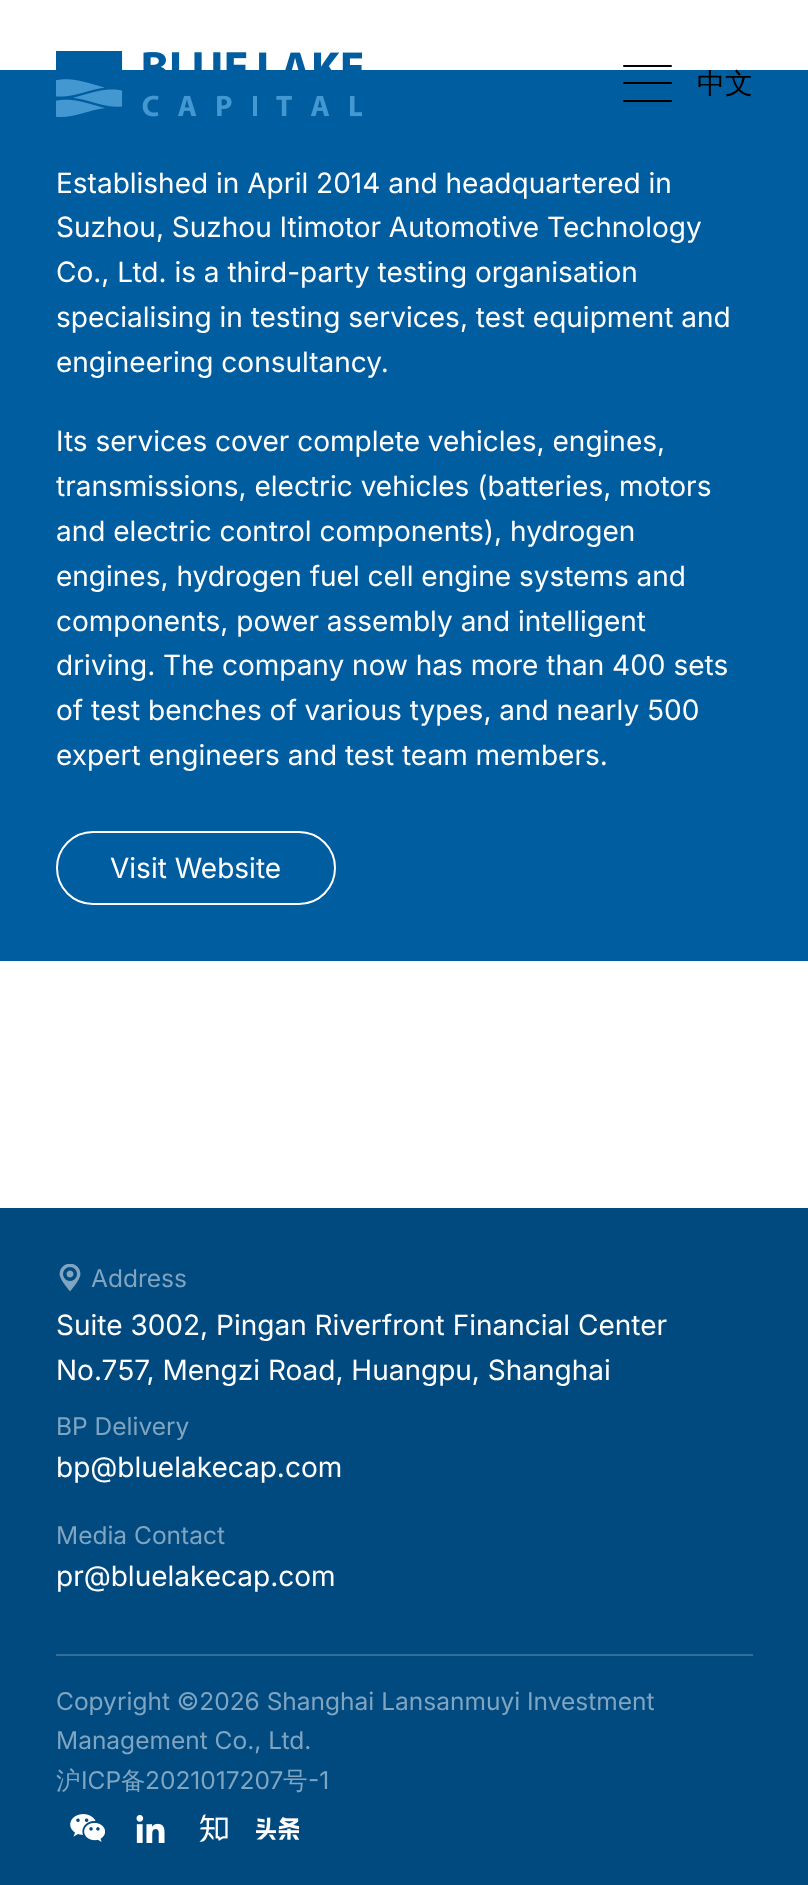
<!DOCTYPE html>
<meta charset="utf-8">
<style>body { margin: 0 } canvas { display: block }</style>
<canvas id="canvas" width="808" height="1885"></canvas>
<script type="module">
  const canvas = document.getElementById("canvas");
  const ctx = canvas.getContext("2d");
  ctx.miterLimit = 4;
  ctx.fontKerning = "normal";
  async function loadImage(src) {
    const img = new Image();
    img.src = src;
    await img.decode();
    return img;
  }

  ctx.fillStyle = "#ffffff";
  ctx.fillRect(0, 0, 808, 1885);
  ctx.fillStyle = "#005da0";
  ctx.fillRect(0, 70, 808, 891);
  ctx.drawImage(await loadImage("img1.png"), 56, 51, 306, 66);
  ctx.fillStyle = "#000000";
  ctx.beginPath();
  ctx.roundRect(623, 82, 49, 2, 1);
  ctx.fill();
  ctx.beginPath();
  ctx.roundRect(623, 65, 49, 2, 1);
  ctx.fill();
  ctx.beginPath();
  ctx.roundRect(623, 100, 49, 2, 1);
  ctx.fill();
  ctx.font = "500 28px WenQuanYi Zen Hei";
  ctx.fillText("中文", 697, 93);
  ctx.font = "28px Inter";
  ctx.fillStyle = "#ffffff";
  ctx.fillText("Established in April 2014 and headquartered in", 56, 193);
  ctx.fillText("Suzhou, Suzhou Itimotor Automotive Technology", 56, 237);
  ctx.fillText("Co., Ltd. is a third-party testing organisation", 56, 282);
  ctx.fillText("specialising in testing services, test equipment and", 56, 327);
  ctx.fillText("engineering consultancy.", 56, 372);
  ctx.fillText("Its services cover complete vehicles, engines,", 56, 451);
  ctx.fillText("transmissions, electric vehicles (batteries, motors", 56, 496);
  ctx.fillText("and electric control components), hydrogen", 56, 541);
  ctx.fillText("engines, hydrogen fuel cell engine systems and", 56, 586);
  ctx.fillText("components, power assembly and intelligent", 56, 631);
  ctx.fillText("driving. The company now has more than 400 sets", 56, 675);
  ctx.fillText("of test benches of various types, and nearly 500", 56, 720);
  ctx.fillText("expert engineers and test team members.", 56, 765);
  ctx.beginPath();
  ctx.roundRect(57, 832, 278, 72, 36);
  ctx.strokeStyle = "#ffffff";
  ctx.lineWidth = 2;
  ctx.stroke();
  ctx.fillText("Visit Website", 110, 878);
  ctx.fillStyle = "#004a80";
  ctx.fillRect(0, 1208, 808, 677);
  ctx.drawImage(await loadImage("img2.png"), 59, 1264, 22, 28);
  ctx.font = "24.5px Inter";
  ctx.fillStyle = "#80a5c0";
  ctx.fillText("Address", 91, 1287);
  ctx.font = "28px Inter";
  ctx.fillStyle = "#ffffff";
  ctx.fillText("Suite 3002, Pingan Riverfront Financial Center", 56, 1335);
  ctx.fillText("No.757, Mengzi Road, Huangpu, Shanghai", 56, 1380);
  ctx.font = "24.5px Inter";
  ctx.fillStyle = "#80a5c0";
  ctx.fillText("BP Delivery", 56, 1435);
  ctx.font = "28px Inter";
  ctx.fillStyle = "#ffffff";
  ctx.fillText("bp@bluelakecap.com", 56, 1477);
  ctx.font = "24.5px Inter";
  ctx.fillStyle = "#80a5c0";
  ctx.fillText("Media Contact", 56, 1544);
  ctx.font = "28px Inter";
  ctx.fillStyle = "#ffffff";
  ctx.fillText("pr@bluelakecap.com", 56, 1586);
  ctx.fillStyle = "#336e99";
  ctx.fillRect(56, 1654, 697, 2);
  ctx.font = "24.5px Inter";
  ctx.fillStyle = "#80a5c0";
  ctx.fillText("Copyright ©2026 Shanghai Lansanmuyi Investment", 56, 1710);
  ctx.fillText("Management Co., Ltd.", 56, 1749);
  ctx.font = "500 24.5px WenQuanYi Zen Hei";
  ctx.fillText("沪", 56, 1789);
  ctx.font = "24.5px Inter";
  ctx.fillText("ICP", 81, 1789);
  ctx.font = "500 24.5px WenQuanYi Zen Hei";
  ctx.fillText("备", 121, 1789);
  ctx.font = "24.5px Inter";
  ctx.fillText("2021017207", 145, 1789);
  ctx.font = "500 24.5px WenQuanYi Zen Hei";
  ctx.fillText("号", 283, 1789);
  ctx.font = "24.5px Inter";
  ctx.fillText("-1", 308, 1789);
  ctx.drawImage(await loadImage("img3.png"), 70, 1814, 35, 28);
  ctx.drawImage(await loadImage("img4.png"), 136, 1815, 29, 28);
  ctx.drawImage(await loadImage("img5.png"), 199, 1814, 29, 28);
  ctx.drawImage(await loadImage("img6.png"), 256, 1817, 43, 23);
</script>
